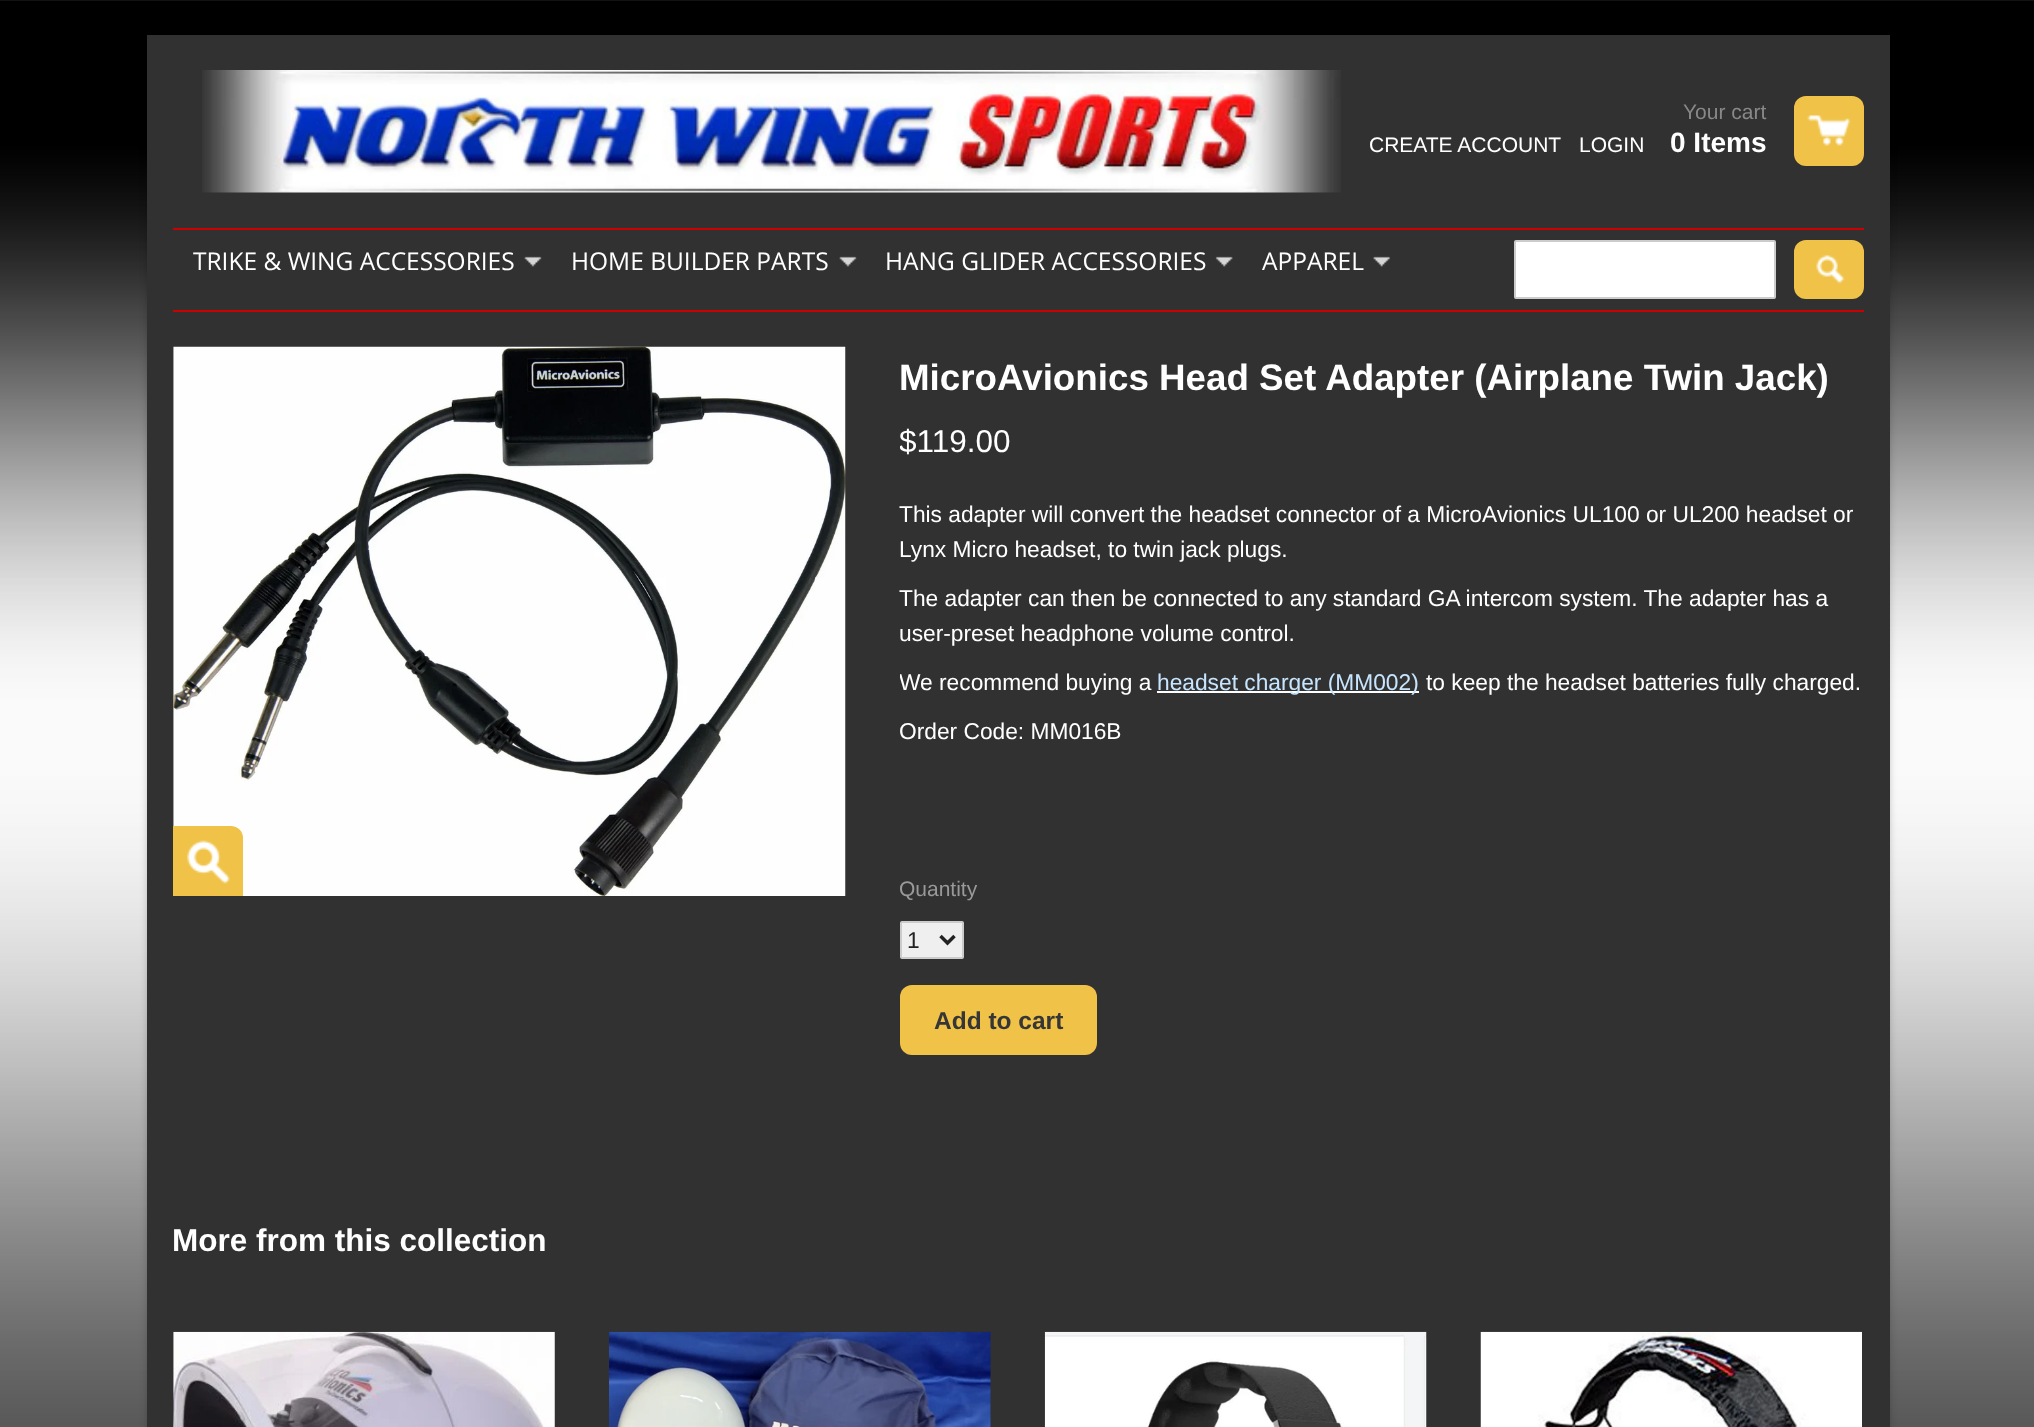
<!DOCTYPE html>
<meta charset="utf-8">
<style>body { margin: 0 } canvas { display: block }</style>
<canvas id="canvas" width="2034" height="1427"></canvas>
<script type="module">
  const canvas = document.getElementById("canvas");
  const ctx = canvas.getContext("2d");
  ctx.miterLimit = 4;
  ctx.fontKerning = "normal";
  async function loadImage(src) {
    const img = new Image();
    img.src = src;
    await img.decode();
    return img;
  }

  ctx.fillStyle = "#ffffff";
  ctx.fillRect(0, 0, 2034, 1427);
  ctx.drawImage(await loadImage("img1.png"), 0, 0, 2034, 35);
  ctx.drawImage(await loadImage("img2.png"), 0, 35, 2034, 1392);
  ctx.fillStyle = "rgba(0, 0, 0, 0.2)";
  ctx.filter = "blur(3.5px)";
  ctx.beginPath();
  ctx.rect(147, 35, 1743, 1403);
  ctx.fill();
  ctx.filter = "none";
  ctx.fillStyle = "#313131";
  ctx.fillRect(147, 35, 1743, 1392);
  ctx.drawImage(await loadImage("img3.png"), 202, 70, 1139, 123);
  ctx.font = "21px Liberation Sans";
  ctx.fillStyle = "#ffffff";
  ctx.fillText("CREATE ACCOUNT", 1369, 152);
  ctx.fillText("LOGIN", 1579, 152);
  ctx.fillStyle = "#888888";
  ctx.fillText("Your cart", 1683, 119);
  ctx.font = "bold 28px Liberation Sans";
  ctx.fillStyle = "#ffffff";
  ctx.fillText("0 Items", 1670, 152);
  ctx.fillStyle = "#f0c348";
  ctx.beginPath();
  ctx.roundRect(1794, 96, 70, 70, 12);
  ctx.fill();
  ctx.drawImage(await loadImage("img4.png"), 1807, 115, 44, 31);
  ctx.fillStyle = "#cc0000";
  ctx.fillRect(173, 228, 1691, 2);
  ctx.fillRect(173, 310, 1691, 2);
  ctx.drawImage(await loadImage("img5.png"), 524, 256, 18, 11);
  ctx.font = "24.5px Open Sans";
  ctx.fillStyle = "#ffffff";
  ctx.fillText("TRIKE & WING ACCESSORIES", 193, 270);
  ctx.drawImage(await loadImage("img5.png"), 839, 256, 18, 11);
  ctx.fillText("HOME BUILDER PARTS", 571, 270);
  ctx.drawImage(await loadImage("img6.png"), 1215, 256, 18, 11);
  ctx.fillText("HANG GLIDER ACCESSORIES", 885, 270);
  ctx.drawImage(await loadImage("img7.png"), 1373, 256, 17, 11);
  ctx.fillText("APPAREL", 1262, 270);
  ctx.beginPath();
  ctx.roundRect(1515, 241, 260, 57, 1);
  ctx.fill();
  ctx.strokeStyle = "#cccccc";
  ctx.lineWidth = 2;
  ctx.stroke();
  ctx.fillStyle = "#f0c348";
  ctx.beginPath();
  ctx.roundRect(1794, 240, 70, 59, 12);
  ctx.fill();
  ctx.drawImage(await loadImage("img8.png"), 1816, 255, 29, 29);
  ctx.drawImage(await loadImage("img9.png"), 173, 346, 673, 550);
  ctx.beginPath();
  ctx.roundRect(173, 826, 70, 70, [0, 12, 0, 0]);
  ctx.fill();
  ctx.drawImage(await loadImage("img10.png"), 186, 840, 44, 44);
  ctx.font = "bold 36.75px Liberation Sans";
  ctx.fillStyle = "#ffffff";
  ctx.fillText("MicroAvionics Head Set Adapter (Airplane Twin Jack)", 899, 390);
  ctx.save();
  ctx.beginPath();
  ctx.rect(900, 347, 964, 827);
  ctx.clip();
  ctx.font = "31.5px Liberation Sans";
  ctx.fillText("$119.00", 899, 452);
  ctx.restore();
  ctx.font = "22.75px Liberation Sans";
  ctx.fillText("This adapter will convert the headset connector of a MicroAvionics UL100 or UL200 headset or", 899, 522);
  ctx.fillText("Lynx Micro headset, to twin jack plugs.", 899, 557);
  ctx.fillText("The adapter can then be connected to any standard GA intercom system. The adapter has a", 899, 606);
  ctx.fillText("user-preset headphone volume control.", 899, 641);
  ctx.save();
  ctx.beginPath();
  ctx.rect(900, 497, 964, 301);
  ctx.clip();
  ctx.fillText("We recommend buying a", 899, 690);
  ctx.restore();
  ctx.fillRect(1157, 691, 262, 2);
  ctx.fillStyle = "#c7e5ff";
  ctx.fillText("headset charger (MM002)", 1157, 690);
  ctx.fillStyle = "#ffffff";
  ctx.fillText("to keep the headset batteries fully charged.", 1426, 690);
  ctx.save();
  ctx.beginPath();
  ctx.rect(900, 497, 964, 301);
  ctx.clip();
  ctx.fillText("Order Code: MM016B", 899, 739);
  ctx.restore();
  ctx.save();
  ctx.beginPath();
  ctx.rect(900, 347, 964, 827);
  ctx.clip();
  ctx.font = "21px Liberation Sans";
  ctx.fillStyle = "#999999";
  ctx.fillText("Quantity", 899, 896);
  ctx.restore();
  ctx.fillStyle = "#efefef";
  ctx.beginPath();
  ctx.roundRect(901, 922, 62, 36, 1);
  ctx.fill();
  ctx.stroke();
  ctx.beginPath();
  ctx.moveTo(940.5, 936);
  ctx.lineTo(947.5, 943);
  ctx.lineTo(954.5, 936);
  ctx.strokeStyle = "#222222";
  ctx.lineWidth = 3.5;
  ctx.stroke();
  ctx.fillStyle = "#222222";
  ctx.fillText("1", 907, 948);
  ctx.fillStyle = "#f0c348";
  ctx.beginPath();
  ctx.roundRect(900, 985, 197, 70, 12);
  ctx.fill();
  ctx.font = "bold 24.5px Liberation Sans";
  ctx.fillStyle = "#363636";
  ctx.fillText("Add to cart", 934, 1029);
  ctx.font = "bold 31.5px Liberation Sans";
  ctx.fillStyle = "#ffffff";
  ctx.fillText("More from this collection", 172, 1251);
  ctx.drawImage(await loadImage("img11.png"), 173, 1331, 382, 96);
  ctx.drawImage(await loadImage("img12.png"), 609, 1331, 382, 96);
  ctx.drawImage(await loadImage("img13.png"), 1044, 1331, 383, 96);
  ctx.drawImage(await loadImage("img14.png"), 1480, 1331, 382, 96);
</script>
